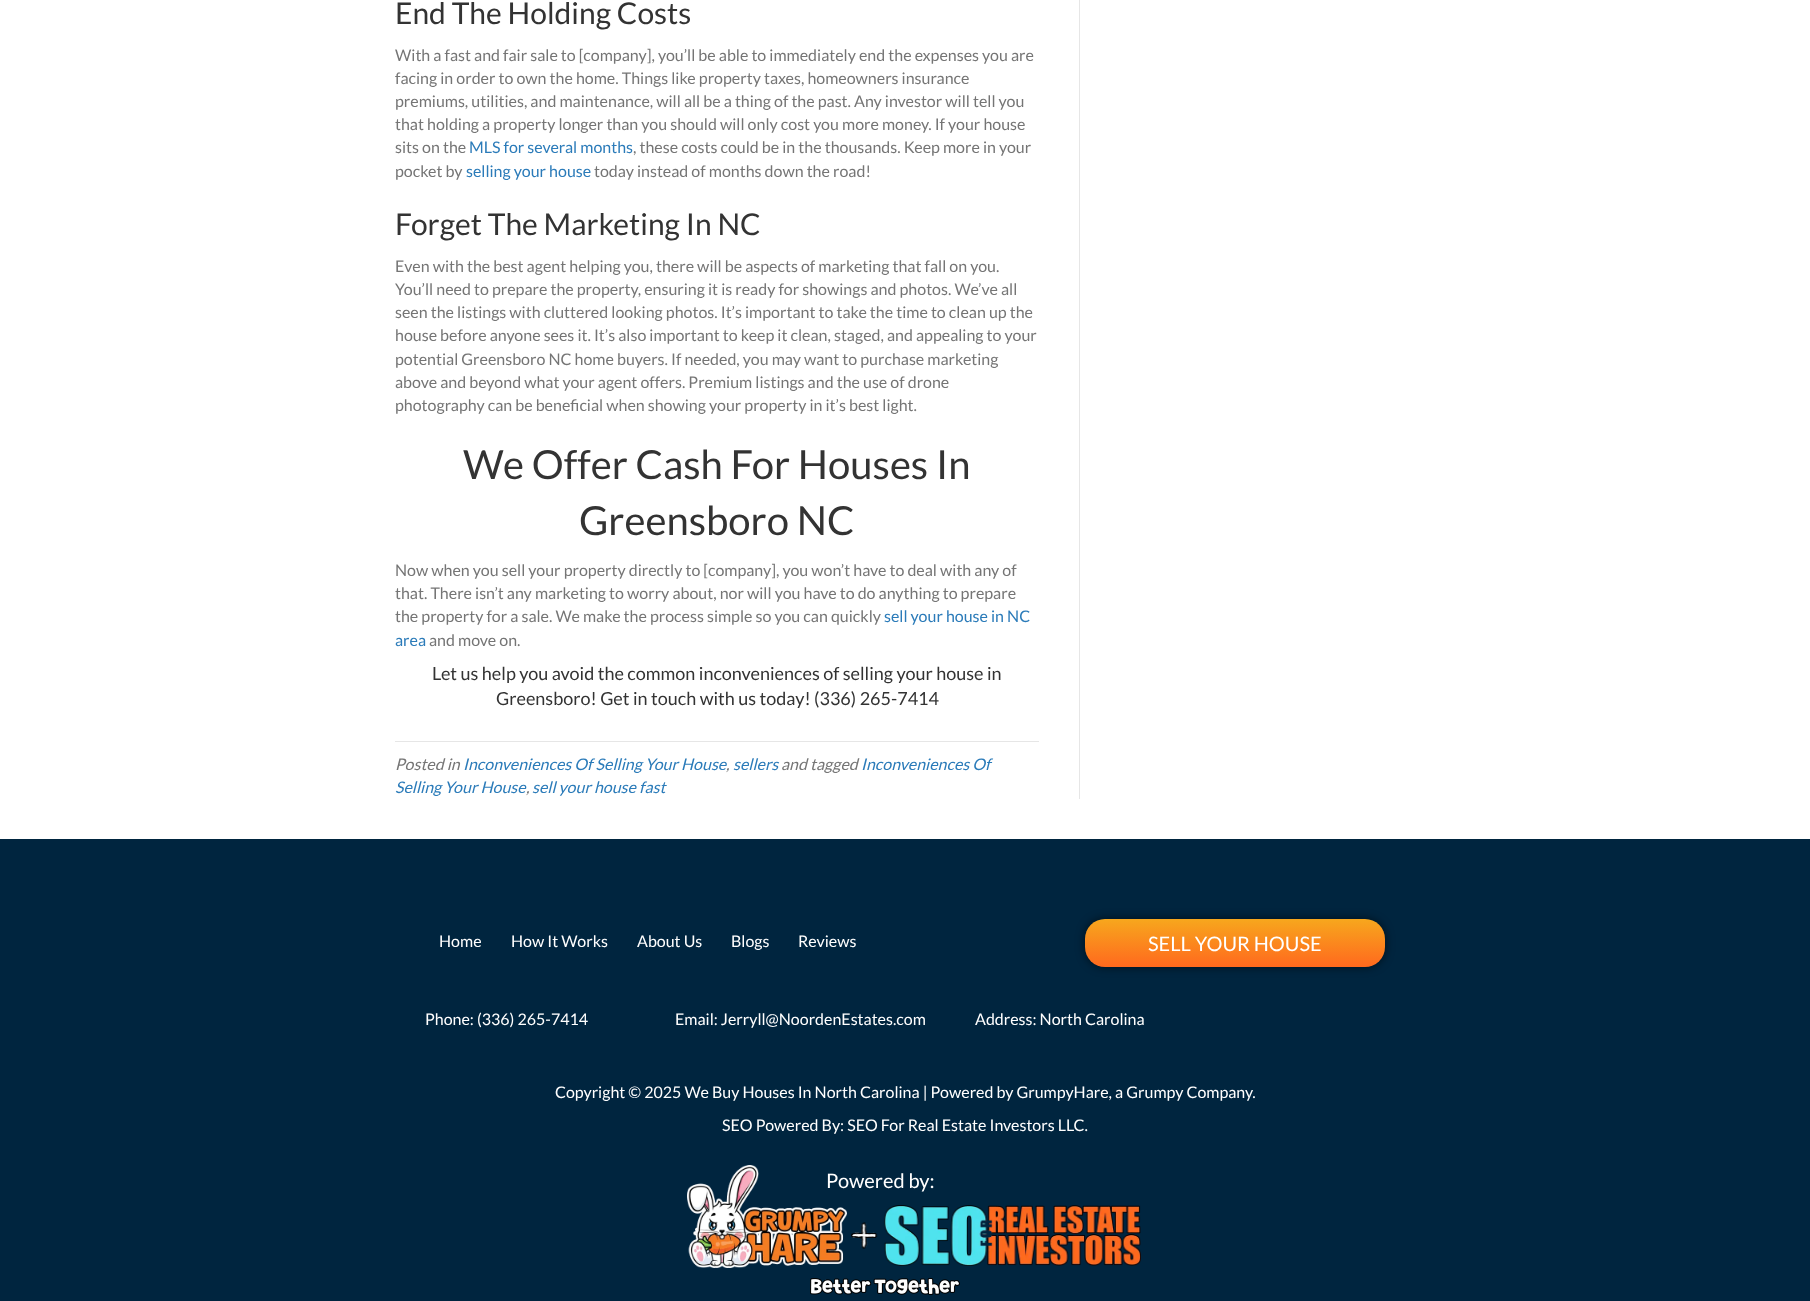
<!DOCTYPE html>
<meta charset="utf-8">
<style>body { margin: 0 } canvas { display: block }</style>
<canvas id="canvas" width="1810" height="1301"></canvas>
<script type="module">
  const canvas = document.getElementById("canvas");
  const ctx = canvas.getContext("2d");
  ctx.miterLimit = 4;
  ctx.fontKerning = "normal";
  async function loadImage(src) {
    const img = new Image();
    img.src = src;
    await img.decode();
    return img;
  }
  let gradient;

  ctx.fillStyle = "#ffffff";
  ctx.fillRect(0, 0, 1810, 1301);
  ctx.fillStyle = "#e6e6e6";
  ctx.fillRect(1079, 0, 1, 799);
  ctx.font = "30px Lato";
  ctx.fillStyle = "#333333";
  ctx.fillText("End The Holding Costs", 395, 24);
  ctx.font = "16px Lato";
  ctx.fillStyle = "#757575";
  ctx.fillText("With a fast and fair sale to [company], you’ll be able to immediately end the expenses you are", 395, 61);
  ctx.fillText("facing in order to own the home. Things like property taxes, homeowners insurance", 395, 84);
  ctx.fillText("premiums, utilities, and maintenance, will all be a thing of the past. Any investor will tell you", 395, 107);
  ctx.fillText("that holding a property longer than you should will only cost you more money. If your house", 395, 130);
  ctx.fillText("sits on the", 395, 153);
  ctx.fillStyle = "#2b7bb9";
  ctx.fillText("MLS for several months", 469, 153);
  ctx.fillStyle = "#757575";
  ctx.fillText(", these costs could be in the thousands. Keep more in your", 633, 153);
  ctx.fillText("pocket by", 395, 177);
  ctx.fillStyle = "#2b7bb9";
  ctx.fillText("selling your house", 466, 177);
  ctx.fillStyle = "#757575";
  ctx.fillText("today instead of months down the road!", 594, 177);
  ctx.font = "30px Lato";
  ctx.fillStyle = "#333333";
  ctx.fillText("Forget The Marketing In NC", 395, 235);
  ctx.font = "16px Lato";
  ctx.fillStyle = "#757575";
  ctx.fillText("Even with the best agent helping you, there will be aspects of marketing that fall on you.", 395, 272);
  ctx.fillText("You’ll need to prepare the property, ensuring it is ready for showings and photos. We’ve all", 395, 295);
  ctx.fillText("seen the listings with cluttered looking photos. It’s important to take the time to clean up the", 395, 318);
  ctx.fillText("house before anyone sees it. It’s also important to keep it clean, staged, and appealing to your", 395, 341);
  ctx.fillText("potential Greensboro NC home buyers. If needed, you may want to purchase marketing", 395, 365);
  ctx.fillText("above and beyond what your agent offers. Premium listings and the use of drone", 395, 388);
  ctx.fillText("photography can be beneficial when showing your property in it’s best light.", 395, 411);
  ctx.font = "40px Lato";
  ctx.fillStyle = "#333333";
  ctx.fillText("We Offer Cash For Houses In", 463, 479);
  ctx.fillText("Greensboro NC", 579, 535);
  ctx.font = "16px Lato";
  ctx.fillStyle = "#757575";
  ctx.fillText("Now when you sell your property directly to [company], you won’t have to deal with any of", 395, 576);
  ctx.fillText("that. There isn’t any marketing to worry about, nor will you have to do anything to prepare", 395, 599);
  ctx.fillText("the property for a sale. We make the process simple so you can quickly", 395, 622);
  ctx.fillStyle = "#2b7bb9";
  ctx.fillText("sell your house in NC", 884, 622);
  ctx.fillText("area", 395, 646);
  ctx.fillStyle = "#757575";
  ctx.fillText("and move on.", 429, 646);
  ctx.font = "18px Lato";
  ctx.fillStyle = "#333333";
  ctx.fillText("Let us help you avoid the common inconveniences of selling your house in", 432, 680);
  ctx.fillText("Greensboro! Get in touch with us today! (336) 265-7414", 496, 705);
  ctx.fillStyle = "#e6e6e6";
  ctx.fillRect(395, 741, 644, 1);
  ctx.font = "italic 16px Lato";
  ctx.fillStyle = "#757575";
  ctx.fillText("Posted in", 395, 770);
  ctx.fillStyle = "#2b7bb9";
  ctx.fillText("Inconveniences Of Selling Your House", 463, 770);
  ctx.fillStyle = "#757575";
  ctx.fillText(",", 726, 770);
  ctx.fillStyle = "#2b7bb9";
  ctx.fillText("sellers", 733, 770);
  ctx.fillStyle = "#757575";
  ctx.fillText("and tagged", 781, 770);
  ctx.fillStyle = "#2b7bb9";
  ctx.fillText("Inconveniences Of", 861, 770);
  ctx.fillText("Selling Your House", 395, 793);
  ctx.fillStyle = "#757575";
  ctx.fillText(",", 526, 793);
  ctx.fillStyle = "#2b7bb9";
  ctx.fillText("sell your house fast", 532, 793);
  ctx.fillStyle = "#00253f";
  ctx.fillRect(0, 839, 1810, 462);
  ctx.font = "16px Lato";
  ctx.fillStyle = "#ffffff";
  ctx.fillText("Home", 439, 947);
  ctx.fillText("How It Works", 511, 947);
  ctx.fillText("About Us", 637, 947);
  ctx.fillText("Blogs", 731, 947);
  ctx.fillText("Reviews", 798, 947);
  ctx.fillStyle = "rgba(0, 0, 0, 0.6)";
  ctx.filter = "blur(5px)";
  ctx.beginPath();
  ctx.roundRect(1085, 919, 300, 48, 20);
  ctx.fill();
  ctx.filter = "none";
  gradient = ctx.createLinearGradient(1235, 919, 1235, 967);
  gradient.addColorStop(0, "#f7a71d");
  gradient.addColorStop(1, "#ff691e");
  ctx.fillStyle = gradient;
  ctx.beginPath();
  ctx.roundRect(1085, 919, 300, 48, 20);
  ctx.fill();
  ctx.font = "20px Lato";
  ctx.fillStyle = "#ffffff";
  ctx.fillText("SELL YOUR HOUSE", 1148, 951);
  ctx.font = "16px Lato";
  ctx.fillText("Phone: (336) 265-7414", 425, 1025);
  ctx.fillText("Email: Jerryll@NoordenEstates.com", 675, 1025);
  ctx.fillText("Address: North Carolina", 975, 1025);
  ctx.fillText("Copyright © 2025 We Buy Houses In North Carolina | Powered by GrumpyHare, a Grumpy Company.", 555, 1098);
  ctx.fillText("SEO Powered By: SEO For Real Estate Investors LLC.", 722, 1131);
  ctx.font = "20px Lato";
  ctx.fillText("Powered by:", 826, 1188);
  ctx.drawImage(await loadImage("img1.png"), 687, 1165, 160, 103);
  ctx.drawImage(await loadImage("img2.png"), 851, 1205, 290, 61);
  ctx.drawImage(await loadImage("img3.png"), 810, 1278, 150, 17);
</script>
